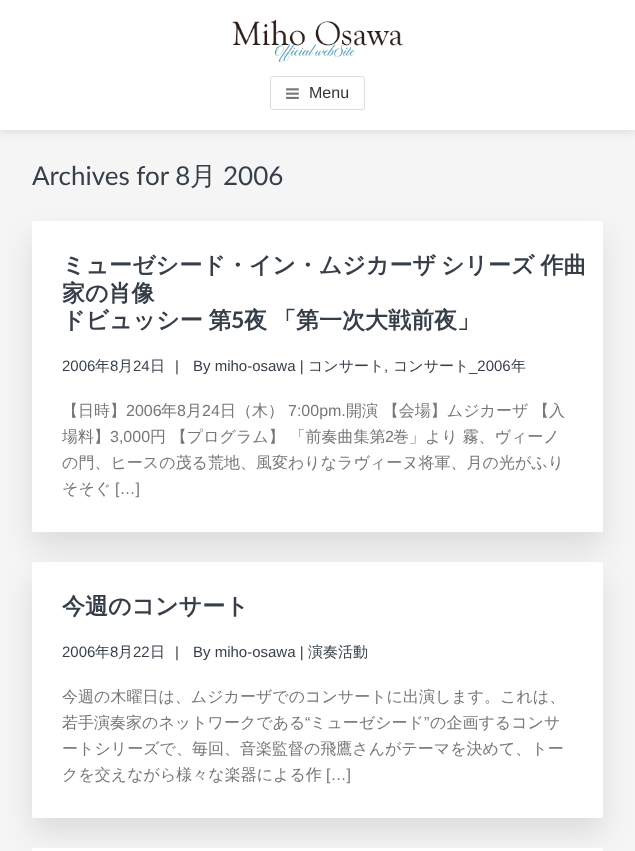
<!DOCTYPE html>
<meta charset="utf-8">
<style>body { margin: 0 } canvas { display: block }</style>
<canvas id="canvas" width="635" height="851"></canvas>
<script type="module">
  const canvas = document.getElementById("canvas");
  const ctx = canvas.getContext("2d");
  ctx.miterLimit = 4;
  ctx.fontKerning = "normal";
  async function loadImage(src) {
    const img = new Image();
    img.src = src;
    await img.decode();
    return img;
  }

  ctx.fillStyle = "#f5f5f5";
  ctx.fillRect(0, 0, 635, 851);
  ctx.fillStyle = "rgba(0, 0, 0, 0.1)";
  ctx.filter = "blur(4px)";
  ctx.beginPath();
  ctx.rect(0, 2, 635, 130);
  ctx.fill();
  ctx.filter = "none";
  ctx.fillStyle = "#ffffff";
  ctx.fillRect(0, 0, 635, 130);
  ctx.drawImage(await loadImage("img1.png"), 232, 20, 171, 42);
  ctx.beginPath();
  ctx.roundRect(270.5, 76.5, 94, 33, 2.5);
  ctx.strokeStyle = "#dddddd";
  ctx.stroke();
  ctx.drawImage(await loadImage("img2.png"), 286, 88, 13, 11);
  ctx.font = "16px Liberation Sans";
  ctx.fillStyle = "#333333";
  ctx.fillText("Menu", 309, 98);
  ctx.font = "26px Lato";
  ctx.fillStyle = "#363f48";
  ctx.fillText("Archives for 8", 32, 185);
  ctx.font = "500 26px WenQuanYi Zen Hei";
  ctx.fillText("月", 190, 185);
  ctx.font = "26px Lato";
  ctx.fillText("2006", 223, 185);
  ctx.fillStyle = "rgba(0, 0, 0, 0.1)";
  ctx.filter = "blur(15px)";
  ctx.beginPath();
  ctx.roundRect(32, 236, 571, 311, 2);
  ctx.fill();
  ctx.filter = "none";
  ctx.fillStyle = "#ffffff";
  ctx.beginPath();
  ctx.roundRect(32, 221, 571, 311, 2);
  ctx.fill();
  ctx.font = "bold 23px WenQuanYi Zen Hei";
  ctx.fillStyle = "#363f48";
  ctx.fillText("ミューゼシード・イン・ムジカーザ", 62, 273);
  ctx.wordSpacing = "-1px";
  ctx.fillText("シリーズ 作曲", 441, 273);
  ctx.wordSpacing = "0px";
  ctx.fillText("家の肖像", 62, 301);
  ctx.wordSpacing = "-1px";
  ctx.fillText("ドビュッシー 第", 62, 328);
  ctx.wordSpacing = "0px";
  ctx.font = "bold 23px Lato";
  ctx.fillText("5", 231, 328);
  ctx.wordSpacing = "-1px";
  ctx.font = "bold 23px WenQuanYi Zen Hei";
  ctx.fillText("夜 「第一次大戦前夜」", 244, 328);
  ctx.wordSpacing = "0px";
  ctx.font = "15px Liberation Sans";
  ctx.fillText("2006", 62, 371);
  ctx.font = "500 15px WenQuanYi Zen Hei";
  ctx.fillText("年", 95, 371);
  ctx.font = "15px Liberation Sans";
  ctx.fillText("8", 110, 371);
  ctx.font = "500 15px WenQuanYi Zen Hei";
  ctx.fillText("月", 118, 371);
  ctx.font = "15px Liberation Sans";
  ctx.fillText("24", 133, 371);
  ctx.font = "500 15px WenQuanYi Zen Hei";
  ctx.fillText("日", 150, 371);
  ctx.font = "15px Liberation Sans";
  ctx.fillText("|", 175, 371);
  ctx.fillText("By miho-osawa |", 193, 371);
  ctx.font = "500 15px WenQuanYi Zen Hei";
  ctx.fillText("コンサート", 308, 371);
  ctx.font = "15px Liberation Sans";
  ctx.fillText(",", 384, 371);
  ctx.font = "500 15px WenQuanYi Zen Hei";
  ctx.fillText("コンサート", 393, 371);
  ctx.font = "15px Liberation Sans";
  ctx.fillText("_2006", 469, 371);
  ctx.font = "500 15px WenQuanYi Zen Hei";
  ctx.fillText("年", 511, 371);
  ctx.font = "500 16px WenQuanYi Zen Hei";
  ctx.fillStyle = "#777777";
  ctx.fillText("【日時】", 62, 416);
  ctx.font = "16px Liberation Sans";
  ctx.fillText("2006", 126, 416);
  ctx.font = "500 16px WenQuanYi Zen Hei";
  ctx.fillText("年", 161, 416);
  ctx.font = "16px Liberation Sans";
  ctx.fillText("8", 177, 416);
  ctx.font = "500 16px WenQuanYi Zen Hei";
  ctx.fillText("月", 186, 416);
  ctx.font = "16px Liberation Sans";
  ctx.fillText("24", 202, 416);
  ctx.font = "500 16px WenQuanYi Zen Hei";
  ctx.fillText("日（木）", 220, 416);
  ctx.font = "16px Liberation Sans";
  ctx.fillText("7:00pm.", 288, 416);
  ctx.font = "500 16px WenQuanYi Zen Hei";
  ctx.fillText("開演 【会場】ムジカーザ 【入", 346, 416);
  ctx.fillText("場料】", 62, 442);
  ctx.font = "16px Liberation Sans";
  ctx.fillText("3,000", 110, 442);
  ctx.font = "500 16px WenQuanYi Zen Hei";
  ctx.fillText("円 【プログラム】 「前奏曲集第", 150, 442);
  ctx.font = "16px Liberation Sans";
  ctx.fillText("2", 385, 442);
  ctx.font = "500 16px WenQuanYi Zen Hei";
  ctx.fillText("巻」より 霧、ヴィーノ", 393, 442);
  ctx.fillText("の門、ヒースの茂る荒地、風変わりなラヴィーヌ将軍、月の光がふり", 62, 468);
  ctx.fillText("そそぐ", 62, 494);
  ctx.font = "16px Liberation Sans";
  ctx.fillText("[…]", 115, 494);
  ctx.fillStyle = "rgba(0, 0, 0, 0.1)";
  ctx.filter = "blur(15px)";
  ctx.beginPath();
  ctx.roundRect(32, 577, 571, 256, 2);
  ctx.fill();
  ctx.filter = "none";
  ctx.fillStyle = "#ffffff";
  ctx.beginPath();
  ctx.roundRect(32, 562, 571, 256, 2);
  ctx.fill();
  ctx.font = "bold 23px WenQuanYi Zen Hei";
  ctx.fillStyle = "#363f48";
  ctx.fillText("今週のコンサート", 62, 614);
  ctx.font = "15px Liberation Sans";
  ctx.fillText("2006", 62, 657);
  ctx.font = "500 15px WenQuanYi Zen Hei";
  ctx.fillText("年", 95, 657);
  ctx.font = "15px Liberation Sans";
  ctx.fillText("8", 110, 657);
  ctx.font = "500 15px WenQuanYi Zen Hei";
  ctx.fillText("月", 118, 657);
  ctx.font = "15px Liberation Sans";
  ctx.fillText("22", 133, 657);
  ctx.font = "500 15px WenQuanYi Zen Hei";
  ctx.fillText("日", 150, 657);
  ctx.font = "15px Liberation Sans";
  ctx.fillText("|", 175, 657);
  ctx.fillText("By miho-osawa |", 193, 657);
  ctx.font = "500 15px WenQuanYi Zen Hei";
  ctx.fillText("演奏活動", 308, 657);
  ctx.font = "500 16px WenQuanYi Zen Hei";
  ctx.fillStyle = "#777777";
  ctx.fillText("今週の木曜日は、ムジカーザでのコンサートに出演します。これは、", 62, 702);
  ctx.fillText("若手演奏家のネットワークである", 62, 728);
  ctx.font = "16px Liberation Sans";
  ctx.fillText("“", 305, 728);
  ctx.font = "500 16px WenQuanYi Zen Hei";
  ctx.fillText("ミューゼシード", 310, 728);
  ctx.font = "16px Liberation Sans";
  ctx.fillText("”", 424, 728);
  ctx.font = "500 16px WenQuanYi Zen Hei";
  ctx.fillText("の企画するコンサ", 430, 728);
  ctx.fillText("ートシリーズで、毎回、音楽監督の飛鷹さんがテーマを決めて、トー", 62, 754);
  ctx.fillText("クを交えながら様々な楽器による作", 62, 780);
  ctx.font = "16px Liberation Sans";
  ctx.fillText("[…]", 326, 780);
  ctx.fillStyle = "#ffffff";
  ctx.beginPath();
  ctx.roundRect(32, 848, 571, 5, 2);
  ctx.fill();
</script>
